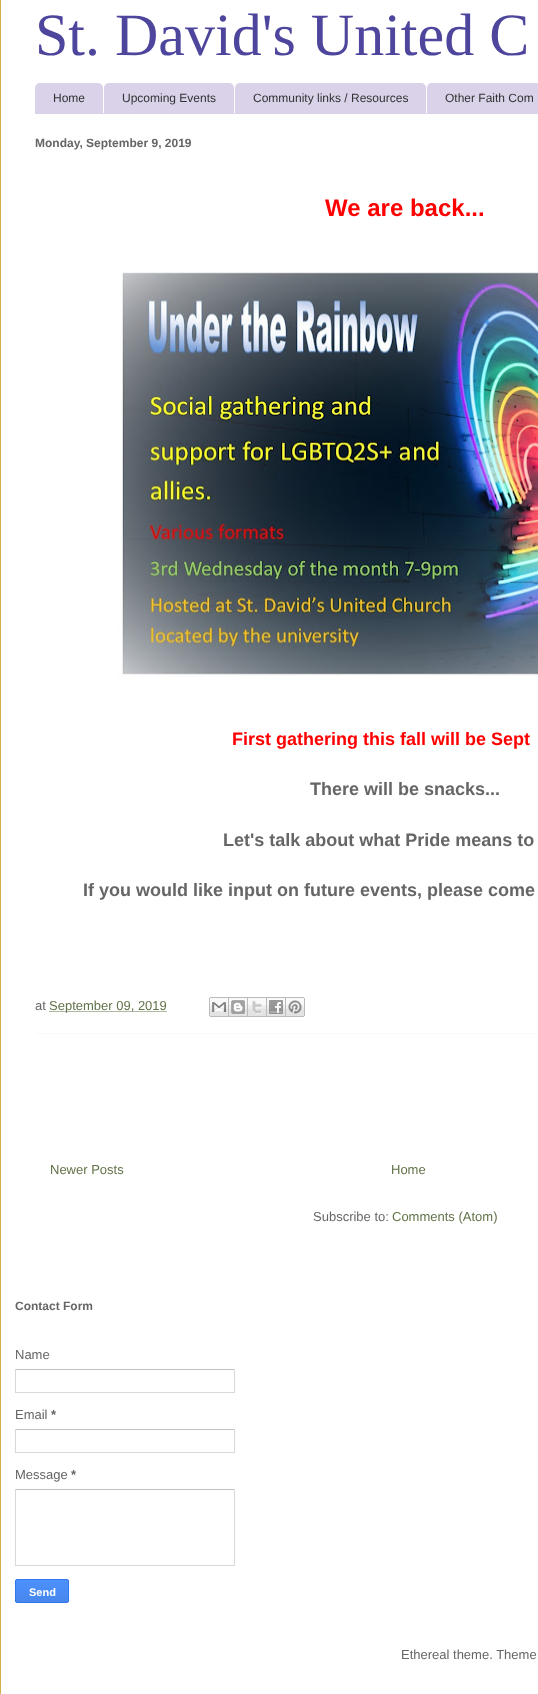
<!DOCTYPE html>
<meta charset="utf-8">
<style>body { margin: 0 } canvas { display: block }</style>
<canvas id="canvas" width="538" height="1694"></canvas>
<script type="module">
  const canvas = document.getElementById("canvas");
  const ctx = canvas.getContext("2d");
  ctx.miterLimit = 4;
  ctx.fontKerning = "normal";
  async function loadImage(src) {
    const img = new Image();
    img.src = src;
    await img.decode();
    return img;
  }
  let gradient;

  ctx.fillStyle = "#ffffff";
  ctx.fillRect(0, 0, 538, 1694);
  ctx.fillStyle = "#d8af4c";
  ctx.fillRect(0, 0, 1, 1694);
  ctx.font = "60px Liberation Serif";
  ctx.fillStyle = "#4d469c";
  ctx.fillText("St. David's United C", 35, 55);
  ctx.fillStyle = "#d9d2e9";
  ctx.fillRect(35, 113, 503, 1);
  ctx.beginPath();
  ctx.roundRect(35, 83, 68, 30, [5, 5, 0, 0]);
  ctx.fill();
  ctx.font = "12px Liberation Sans";
  ctx.fillStyle = "#333333";
  ctx.fillText("Home", 53, 102);
  ctx.fillStyle = "#d9d2e9";
  ctx.beginPath();
  ctx.roundRect(104, 83, 130, 30, [5, 5, 0, 0]);
  ctx.fill();
  ctx.fillStyle = "#333333";
  ctx.fillText("Upcoming Events", 122, 102);
  ctx.fillStyle = "#d9d2e9";
  ctx.beginPath();
  ctx.roundRect(235, 83, 191, 30, [5, 5, 0, 0]);
  ctx.fill();
  ctx.fillStyle = "#333333";
  ctx.fillText("Community links / Resources", 253, 102);
  ctx.fillStyle = "#d9d2e9";
  ctx.beginPath();
  ctx.moveTo(432, 83);
  ctx.lineTo(538, 83);
  ctx.bezierCurveTo(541, 83, 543, 85, 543, 88);
  ctx.lineTo(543, 113);
  ctx.lineTo(427, 113);
  ctx.lineTo(427, 88);
  ctx.bezierCurveTo(427, 85, 429, 83, 432, 83);
  ctx.closePath();
  ctx.fill();
  ctx.fillStyle = "#333333";
  ctx.fillText("Other Faith Com", 445, 102);
  ctx.font = "bold 12px Liberation Sans";
  ctx.fillStyle = "#666666";
  ctx.fillText("Monday, September 9, 2019", 35, 147);
  ctx.fillStyle = "#f9f9f9";
  ctx.fillRect(35, 1033, 503, 1);
  ctx.font = "bold 24px Liberation Sans";
  ctx.fillStyle = "#ff0000";
  ctx.fillText("We are back...", 325, 216);
  ctx.drawImage(await loadImage("img1.png"), 118, 272, 420, 405);
  ctx.font = "bold 18px Liberation Sans";
  ctx.fillText("First gathering this fall will be Sept", 232, 745);
  ctx.fillStyle = "#666666";
  ctx.fillText("There will be snacks...", 310, 795);
  ctx.fillText("Let's talk about what Pride means to", 223, 846);
  ctx.fillText("If you would like input on future events, please come", 83, 896);
  ctx.font = "13px Liberation Sans";
  ctx.fillText("at", 35, 1010);
  ctx.beginPath();
  ctx.moveTo(49.5, 1011.5);
  ctx.lineTo(167.5, 1011.5);
  ctx.strokeStyle = "#627349";
  ctx.setLineDash([1, 1]);
  ctx.stroke();
  ctx.fillStyle = "#627349";
  ctx.fillText("September 09, 2019", 49, 1010);
  ctx.drawImage(await loadImage("img2.png"), 209, 997, 20, 20);
  ctx.drawImage(await loadImage("img3.png"), 229, 997, 19, 20);
  ctx.drawImage(await loadImage("img4.png"), 248, 997, 19, 20);
  ctx.drawImage(await loadImage("img5.png"), 267, 997, 19, 20);
  ctx.drawImage(await loadImage("img6.png"), 286, 997, 19, 20);
  ctx.fillText("Newer Posts", 50, 1174);
  ctx.fillText("Home", 391, 1174);
  ctx.fillStyle = "#666666";
  ctx.fillText("Subscribe to:", 313, 1221);
  ctx.fillStyle = "#627349";
  ctx.fillText("Comments (Atom)", 392, 1221);
  ctx.font = "bold 12px Liberation Sans";
  ctx.fillStyle = "#666666";
  ctx.fillText("Contact Form", 15, 1310);
  ctx.font = "13px Liberation Sans";
  ctx.fillText("Name", 15, 1359);
  ctx.fillStyle = "#c0c0c0";
  ctx.fillRect(15, 1369, 220, 1);
  ctx.fillStyle = "#d9d9d9";
  ctx.fillRect(234, 1369, 1, 24);
  ctx.fillRect(15, 1392, 220, 1);
  ctx.fillRect(15, 1369, 1, 24);
  ctx.fillStyle = "#666666";
  ctx.fillText("Email", 15, 1419);
  ctx.font = "bold 13px Liberation Sans";
  ctx.fillText("*", 51, 1419);
  ctx.fillStyle = "#c0c0c0";
  ctx.fillRect(15, 1429, 220, 1);
  ctx.fillStyle = "#d9d9d9";
  ctx.fillRect(234, 1429, 1, 24);
  ctx.fillRect(15, 1452, 220, 1);
  ctx.fillRect(15, 1429, 1, 24);
  ctx.font = "13px Liberation Sans";
  ctx.fillStyle = "#666666";
  ctx.fillText("Message", 15, 1479);
  ctx.font = "bold 13px Liberation Sans";
  ctx.fillText("*", 71, 1479);
  ctx.fillStyle = "#c0c0c0";
  ctx.fillRect(15, 1489, 220, 1);
  ctx.fillStyle = "#d9d9d9";
  ctx.fillRect(234, 1489, 1, 77);
  ctx.fillRect(15, 1565, 220, 1);
  ctx.fillRect(15, 1489, 1, 77);
  ctx.save();
  ctx.beginPath();
  ctx.roundRect(15, 1579, 54, 24, 2);
  ctx.clip();
  gradient = ctx.createLinearGradient(42, 1580, 42, 1602);
  gradient.addColorStop(0, "#4d90fe");
  gradient.addColorStop(1, "#4787ed");
  ctx.fillStyle = gradient;
  ctx.fillRect(15, 1580, 54, 22);
  ctx.restore();
  ctx.beginPath();
  ctx.roundRect(15.5, 1579.5, 53, 23, 1.5);
  ctx.strokeStyle = "#3079ed";
  ctx.setLineDash([]);
  ctx.stroke();
  ctx.font = "bold 11px Liberation Sans";
  ctx.fillStyle = "#ffffff";
  ctx.fillText("Send", 29, 1596);
  ctx.font = "13px Liberation Sans";
  ctx.fillStyle = "#666666";
  ctx.fillText("Ethereal theme. Theme", 401, 1659);
</script>
